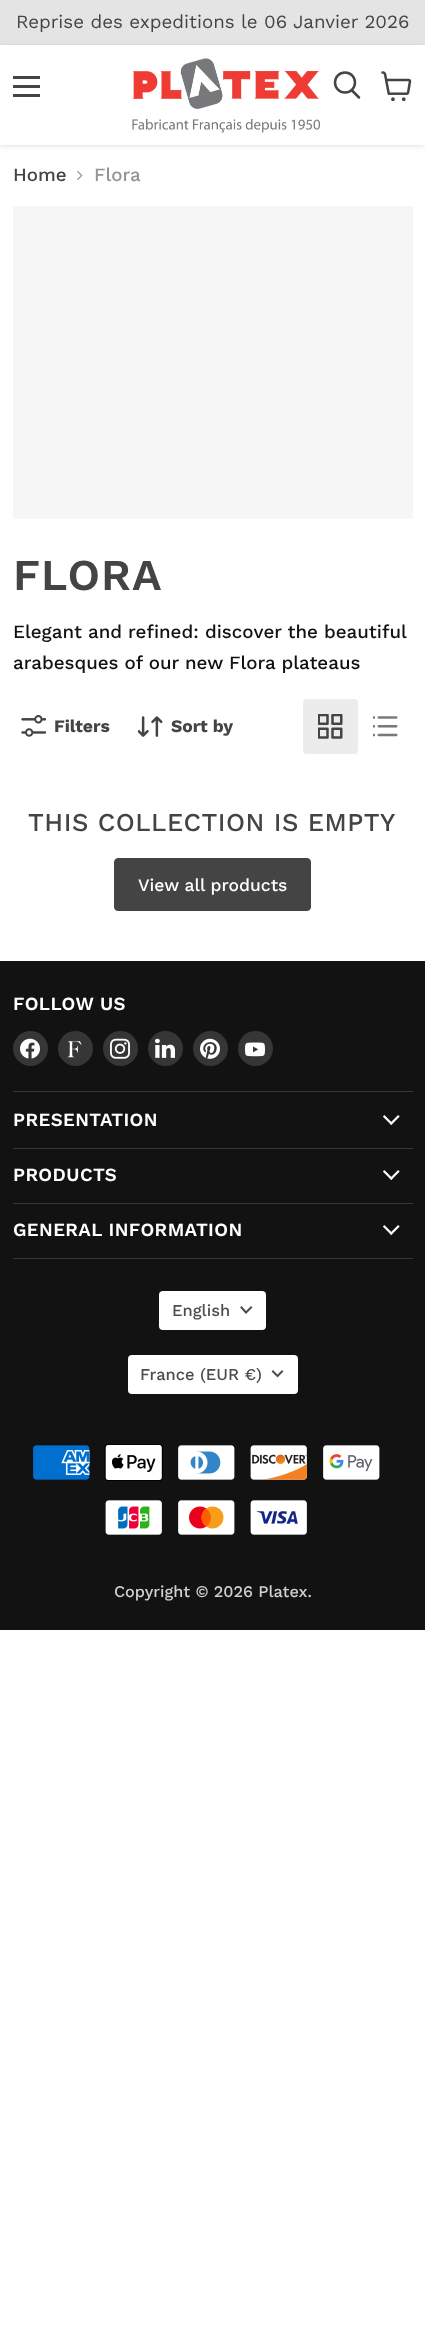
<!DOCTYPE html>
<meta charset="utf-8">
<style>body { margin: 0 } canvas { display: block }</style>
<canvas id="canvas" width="425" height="2326"></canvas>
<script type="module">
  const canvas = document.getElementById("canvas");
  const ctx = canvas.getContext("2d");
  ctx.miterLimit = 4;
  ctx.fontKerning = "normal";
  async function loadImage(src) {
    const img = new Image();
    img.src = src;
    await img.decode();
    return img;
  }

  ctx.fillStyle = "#ffffff";
  ctx.fillRect(0, 0, 425, 2326);
  ctx.fillStyle = "#e4e4e4";
  ctx.fillRect(0, 0, 425, 45);
  ctx.font = "18.75px Work Sans";
  ctx.fillStyle = "#444444";
  ctx.fillText("Reprise des expeditions le 06 Janvier 2026", 16, 28);
  ctx.save();
  ctx.beginPath();
  ctx.moveTo(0, 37);
  ctx.lineTo(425, 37);
  ctx.lineTo(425, 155);
  ctx.lineTo(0, 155);
  ctx.closePath();
  ctx.moveTo(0, 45);
  ctx.lineTo(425, 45);
  ctx.lineTo(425, 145);
  ctx.lineTo(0, 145);
  ctx.closePath();
  ctx.clip("evenodd");
  ctx.fillStyle = "rgba(128, 128, 128, 0.25)";
  ctx.filter = "blur(2.5px)";
  ctx.beginPath();
  ctx.rect(0, 46, 425, 100);
  ctx.fill();
  ctx.filter = "none";
  ctx.restore();
  ctx.fillRect(13, 76, 27, 3);
  ctx.fillRect(13, 85, 27, 3);
  ctx.fillRect(13, 94, 27, 3);
  ctx.drawImage(await loadImage("img1.png"), 132, 58, 188, 75);
  ctx.beginPath();
  ctx.moveTo(359, 97.5);
  ctx.lineTo(352, 90.5);
  ctx.strokeStyle = "#444444";
  ctx.lineWidth = 2.5;
  ctx.lineCap = "round";
  ctx.stroke();
  ctx.beginPath();
  ctx.arc(345, 82.5, 10, 0, Math.PI * 2);
  ctx.stroke();
  ctx.drawImage(await loadImage("img2.png"), 381, 71, 31, 30);
  ctx.font = "500 18.75px Work Sans";
  ctx.fillText("Home", 13, 181);
  ctx.drawImage(await loadImage("img3.png"), 77, 171, 6, 9);
  ctx.fillStyle = "#949494";
  ctx.fillText("Flora", 94, 181);
  ctx.fillStyle = "#f6f6f6";
  ctx.fillRect(13, 206, 400, 313);
  ctx.letterSpacing = "1px";
  ctx.font = "600 44px Work Sans";
  ctx.fillStyle = "#444444";
  ctx.fillText("FLORA", 13, 590);
  ctx.letterSpacing = "0px";
  ctx.font = "500 18.75px Work Sans";
  ctx.fillStyle = "#121212";
  ctx.fillText("Elegant and refined: discover the beautiful", 13, 638);
  ctx.fillText("arabesques of our new Flora plateaus", 13, 669);
  ctx.drawImage(await loadImage("img4.png"), 21, 715, 25, 22);
  ctx.font = "bold 17.5px Work Sans";
  ctx.fillStyle = "#444444";
  ctx.fillText("Filters", 54, 732);
  ctx.drawImage(await loadImage("img5.png"), 138, 716, 25, 21);
  ctx.fillText("Sort by", 171, 732);
  ctx.fillStyle = "#ececec";
  ctx.beginPath();
  ctx.roundRect(303, 699, 55, 55, 4);
  ctx.fill();
  ctx.drawImage(await loadImage("img6.png"), 318, 714, 25, 25);
  ctx.drawImage(await loadImage("img7.png"), 373, 716, 25, 21);
  ctx.letterSpacing = "0.5px";
  ctx.font = "500 25.6px Work Sans";
  ctx.fillStyle = "#444444";
  ctx.fillText("THIS COLLECTION IS EMPTY", 28, 831);
  ctx.beginPath();
  ctx.roundRect(114.5, 858.5, 196, 52, 3.5);
  ctx.fill();
  ctx.lineWidth = 1;
  ctx.stroke();
  ctx.letterSpacing = "0px";
  ctx.font = "500 17.5px Work Sans";
  ctx.fillStyle = "#ffffff";
  ctx.fillText("View all products", 138, 891);
  ctx.fillStyle = "#121212";
  ctx.fillRect(0, 961, 425, 669);
  ctx.fillStyle = "#363636";
  ctx.fillRect(13, 1091, 400, 1);
  ctx.letterSpacing = "0.4px";
  ctx.font = "600 18.6px Work Sans";
  ctx.fillStyle = "#ffffff";
  ctx.fillText("FOLLOW US", 13, 1010);
  ctx.fillStyle = "#363636";
  ctx.beginPath();
  ctx.arc(30.5, 1048.5, 17.5, 0, Math.PI * 2);
  ctx.fill();
  ctx.drawImage(await loadImage("img8.png"), 20, 1038, 20, 21);
  ctx.beginPath();
  ctx.arc(75.5, 1048.5, 17.5, 0, Math.PI * 2);
  ctx.fill();
  ctx.drawImage(await loadImage("img9.png"), 67, 1041, 15, 17);
  ctx.beginPath();
  ctx.arc(120.5, 1048.5, 17.5, 0, Math.PI * 2);
  ctx.fill();
  ctx.drawImage(await loadImage("img10.png"), 110, 1038, 20, 21);
  ctx.beginPath();
  ctx.arc(165.5, 1048.5, 17.5, 0, Math.PI * 2);
  ctx.fill();
  ctx.drawImage(await loadImage("img11.png"), 155, 1038, 20, 20);
  ctx.beginPath();
  ctx.arc(210.5, 1048.5, 17.5, 0, Math.PI * 2);
  ctx.fill();
  ctx.drawImage(await loadImage("img12.png"), 200, 1038, 20, 21);
  ctx.beginPath();
  ctx.arc(255.5, 1048.5, 17.5, 0, Math.PI * 2);
  ctx.fill();
  ctx.drawImage(await loadImage("img13.png"), 245, 1042, 20, 15);
  ctx.fillRect(13, 1148, 400, 1);
  ctx.fillStyle = "#ffffff";
  ctx.fillText("PRESENTATION", 13, 1126);
  ctx.drawImage(await loadImage("img14.png"), 383, 1115, 17, 10);
  ctx.fillStyle = "#363636";
  ctx.fillRect(13, 1203, 400, 1);
  ctx.fillStyle = "#ffffff";
  ctx.fillText("PRODUCTS", 13, 1181);
  ctx.drawImage(await loadImage("img14.png"), 383, 1170, 17, 10);
  ctx.fillStyle = "#363636";
  ctx.fillRect(13, 1258, 400, 1);
  ctx.fillStyle = "#ffffff";
  ctx.fillText("GENERAL INFORMATION", 13, 1236);
  ctx.drawImage(await loadImage("img14.png"), 383, 1225, 17, 10);
  ctx.beginPath();
  ctx.roundRect(159, 1291, 107, 39, 4);
  ctx.fill();
  ctx.letterSpacing = "0px";
  ctx.font = "500 16.5px Work Sans";
  ctx.fillStyle = "#4d4d4d";
  ctx.fillText("English", 172, 1316);
  ctx.beginPath();
  ctx.moveTo(246, 1312.5);
  ctx.lineTo(251, 1307.5);
  ctx.moveTo(246, 1312.5);
  ctx.lineTo(241.5, 1307.5);
  ctx.strokeStyle = "#4d4d4d";
  ctx.lineWidth = 2;
  ctx.lineCap = "square";
  ctx.stroke();
  ctx.fillStyle = "#ffffff";
  ctx.beginPath();
  ctx.roundRect(128, 1355, 170, 39, 4);
  ctx.fill();
  ctx.fillStyle = "#4d4d4d";
  ctx.fillText("France (EUR €)", 140, 1380);
  ctx.beginPath();
  ctx.moveTo(277.5, 1376);
  ctx.lineTo(282, 1371.5);
  ctx.moveTo(277.5, 1376);
  ctx.lineTo(273, 1371.5);
  ctx.stroke();
  ctx.drawImage(await loadImage("img15.png"), 33, 1445, 57, 35);
  ctx.drawImage(await loadImage("img16.png"), 104, 1444, 59, 37);
  ctx.drawImage(await loadImage("img17.png"), 178, 1445, 57, 35);
  ctx.drawImage(await loadImage("img18.png"), 250, 1445, 57, 35);
  ctx.drawImage(await loadImage("img19.png"), 323, 1445, 57, 35);
  ctx.drawImage(await loadImage("img20.png"), 105, 1500, 57, 35);
  ctx.drawImage(await loadImage("img21.png"), 178, 1500, 57, 35);
  ctx.drawImage(await loadImage("img22.png"), 250, 1500, 57, 35);
  ctx.font = "500 16.25px Work Sans";
  ctx.fillStyle = "#d0d0d0";
  ctx.fillText("Copyright © 2026 Platex.", 114, 1597);
</script>
